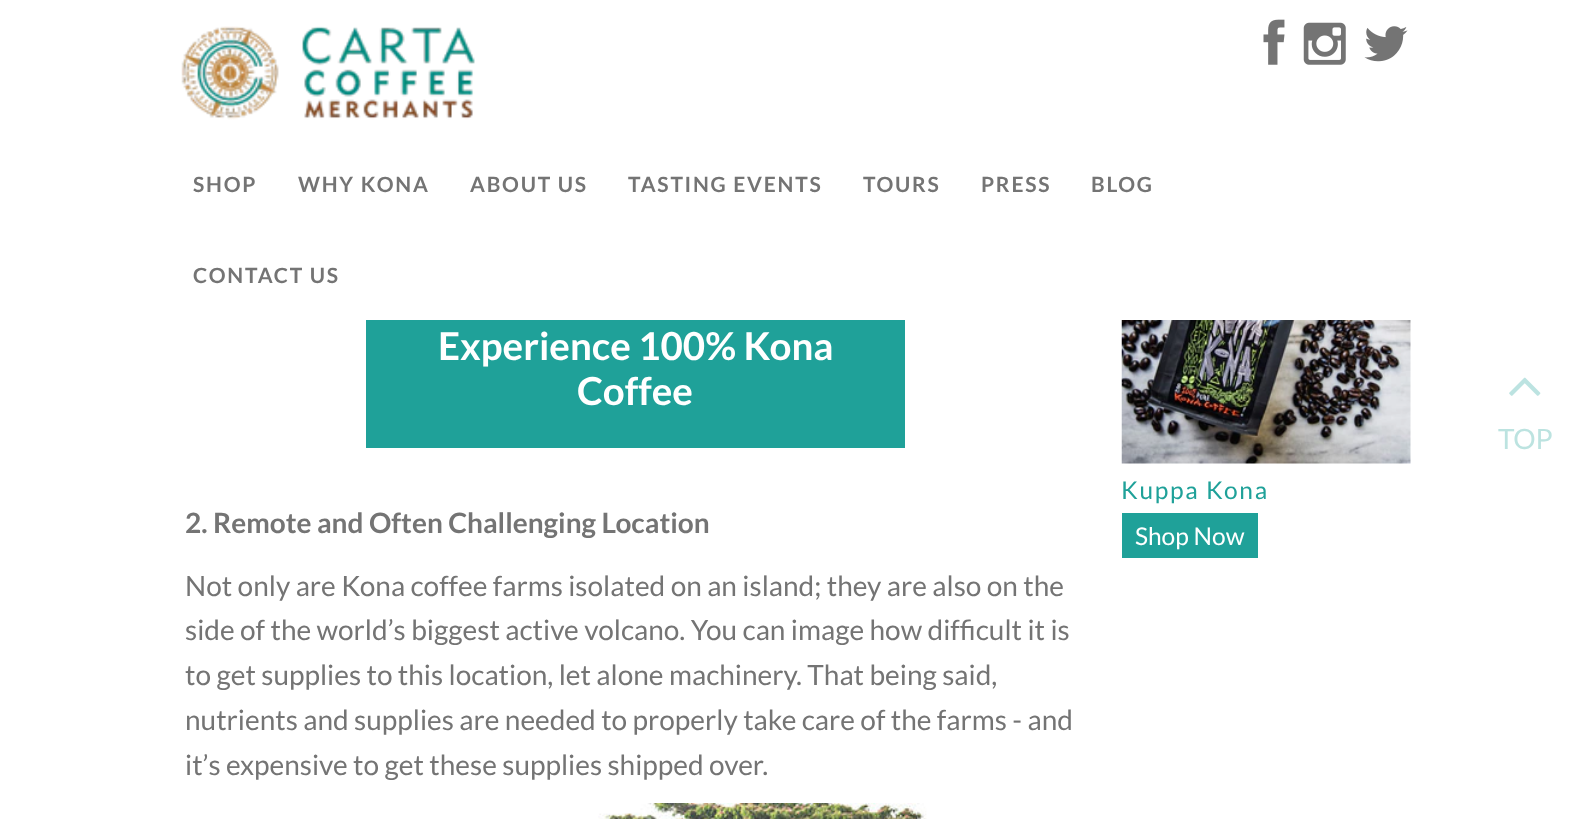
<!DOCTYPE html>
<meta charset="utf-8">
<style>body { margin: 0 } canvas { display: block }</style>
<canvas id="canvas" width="1585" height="819"></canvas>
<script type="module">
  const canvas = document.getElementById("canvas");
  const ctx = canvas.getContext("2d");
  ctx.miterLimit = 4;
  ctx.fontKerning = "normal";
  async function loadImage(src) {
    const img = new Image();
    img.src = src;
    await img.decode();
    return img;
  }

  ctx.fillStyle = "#ffffff";
  ctx.fillRect(0, 0, 1585, 819);
  ctx.drawImage(await loadImage("img1.png"), 1263, 19, 22, 46);
  ctx.drawImage(await loadImage("img2.png"), 1303, 22, 43, 43);
  ctx.drawImage(await loadImage("img3.png"), 1364, 26, 44, 36);
  ctx.drawImage(await loadImage("img4.png"), 181, 26, 294, 94);
  ctx.letterSpacing = "1.75px";
  ctx.font = "bold 21px Lato";
  ctx.fillStyle = "#747474";
  ctx.fillText("SHOP", 193, 192);
  ctx.fillText("WHY KONA", 298, 192);
  ctx.fillText("ABOUT US", 470, 192);
  ctx.fillText("TASTING EVENTS", 628, 192);
  ctx.fillText("TOURS", 863, 192);
  ctx.fillText("PRESS", 981, 192);
  ctx.fillText("BLOG", 1091, 192);
  ctx.fillText("CONTACT US", 193, 283);
  ctx.fillStyle = "#1fa199";
  ctx.fillRect(366, 320, 539, 128);
  ctx.letterSpacing = "0px";
  ctx.font = "bold 38.5px Lato";
  ctx.fillStyle = "#ffffff";
  ctx.fillText("Experience 100% Kona", 438, 360);
  ctx.fillText("Coffee", 577, 405);
  ctx.font = "bold 28px Lato";
  ctx.fillStyle = "#747474";
  ctx.fillText("2. Remote and Often Challenging Location", 185, 533);
  ctx.font = "28px Lato";
  ctx.fillText("Not only are Kona coffee farms isolated on an island; they are also on the", 185, 596);
  ctx.fillText("side of the world’s biggest active volcano. You can image how difficult it is", 185, 640);
  ctx.fillText("to get supplies to this location, let alone machinery. That being said,", 185, 685);
  ctx.fillText("nutrients and supplies are needed to properly take care of the farms - and", 185, 730);
  ctx.fillText("it’s expensive to get these supplies shipped over.", 185, 775);
  ctx.drawImage(await loadImage("img5.png"), 598, 803, 329, 16);
  ctx.drawImage(await loadImage("img6.png"), 1121, 320, 290, 144);
  ctx.letterSpacing = "1.75px";
  ctx.font = "24.5px Lato";
  ctx.fillStyle = "#1fa199";
  ctx.fillText("Kuppa Kona", 1121, 499);
  ctx.fillRect(1122, 513, 136, 45);
  ctx.letterSpacing = "0px";
  ctx.fillStyle = "#ffffff";
  ctx.fillText("Shop Now", 1135, 545);
  ctx.drawImage(await loadImage("img7.png"), 1509, 377, 32, 19);
  ctx.font = "28px Lato";
  ctx.fillStyle = "#bce3e0";
  ctx.fillText("TOP", 1498, 449);
</script>
